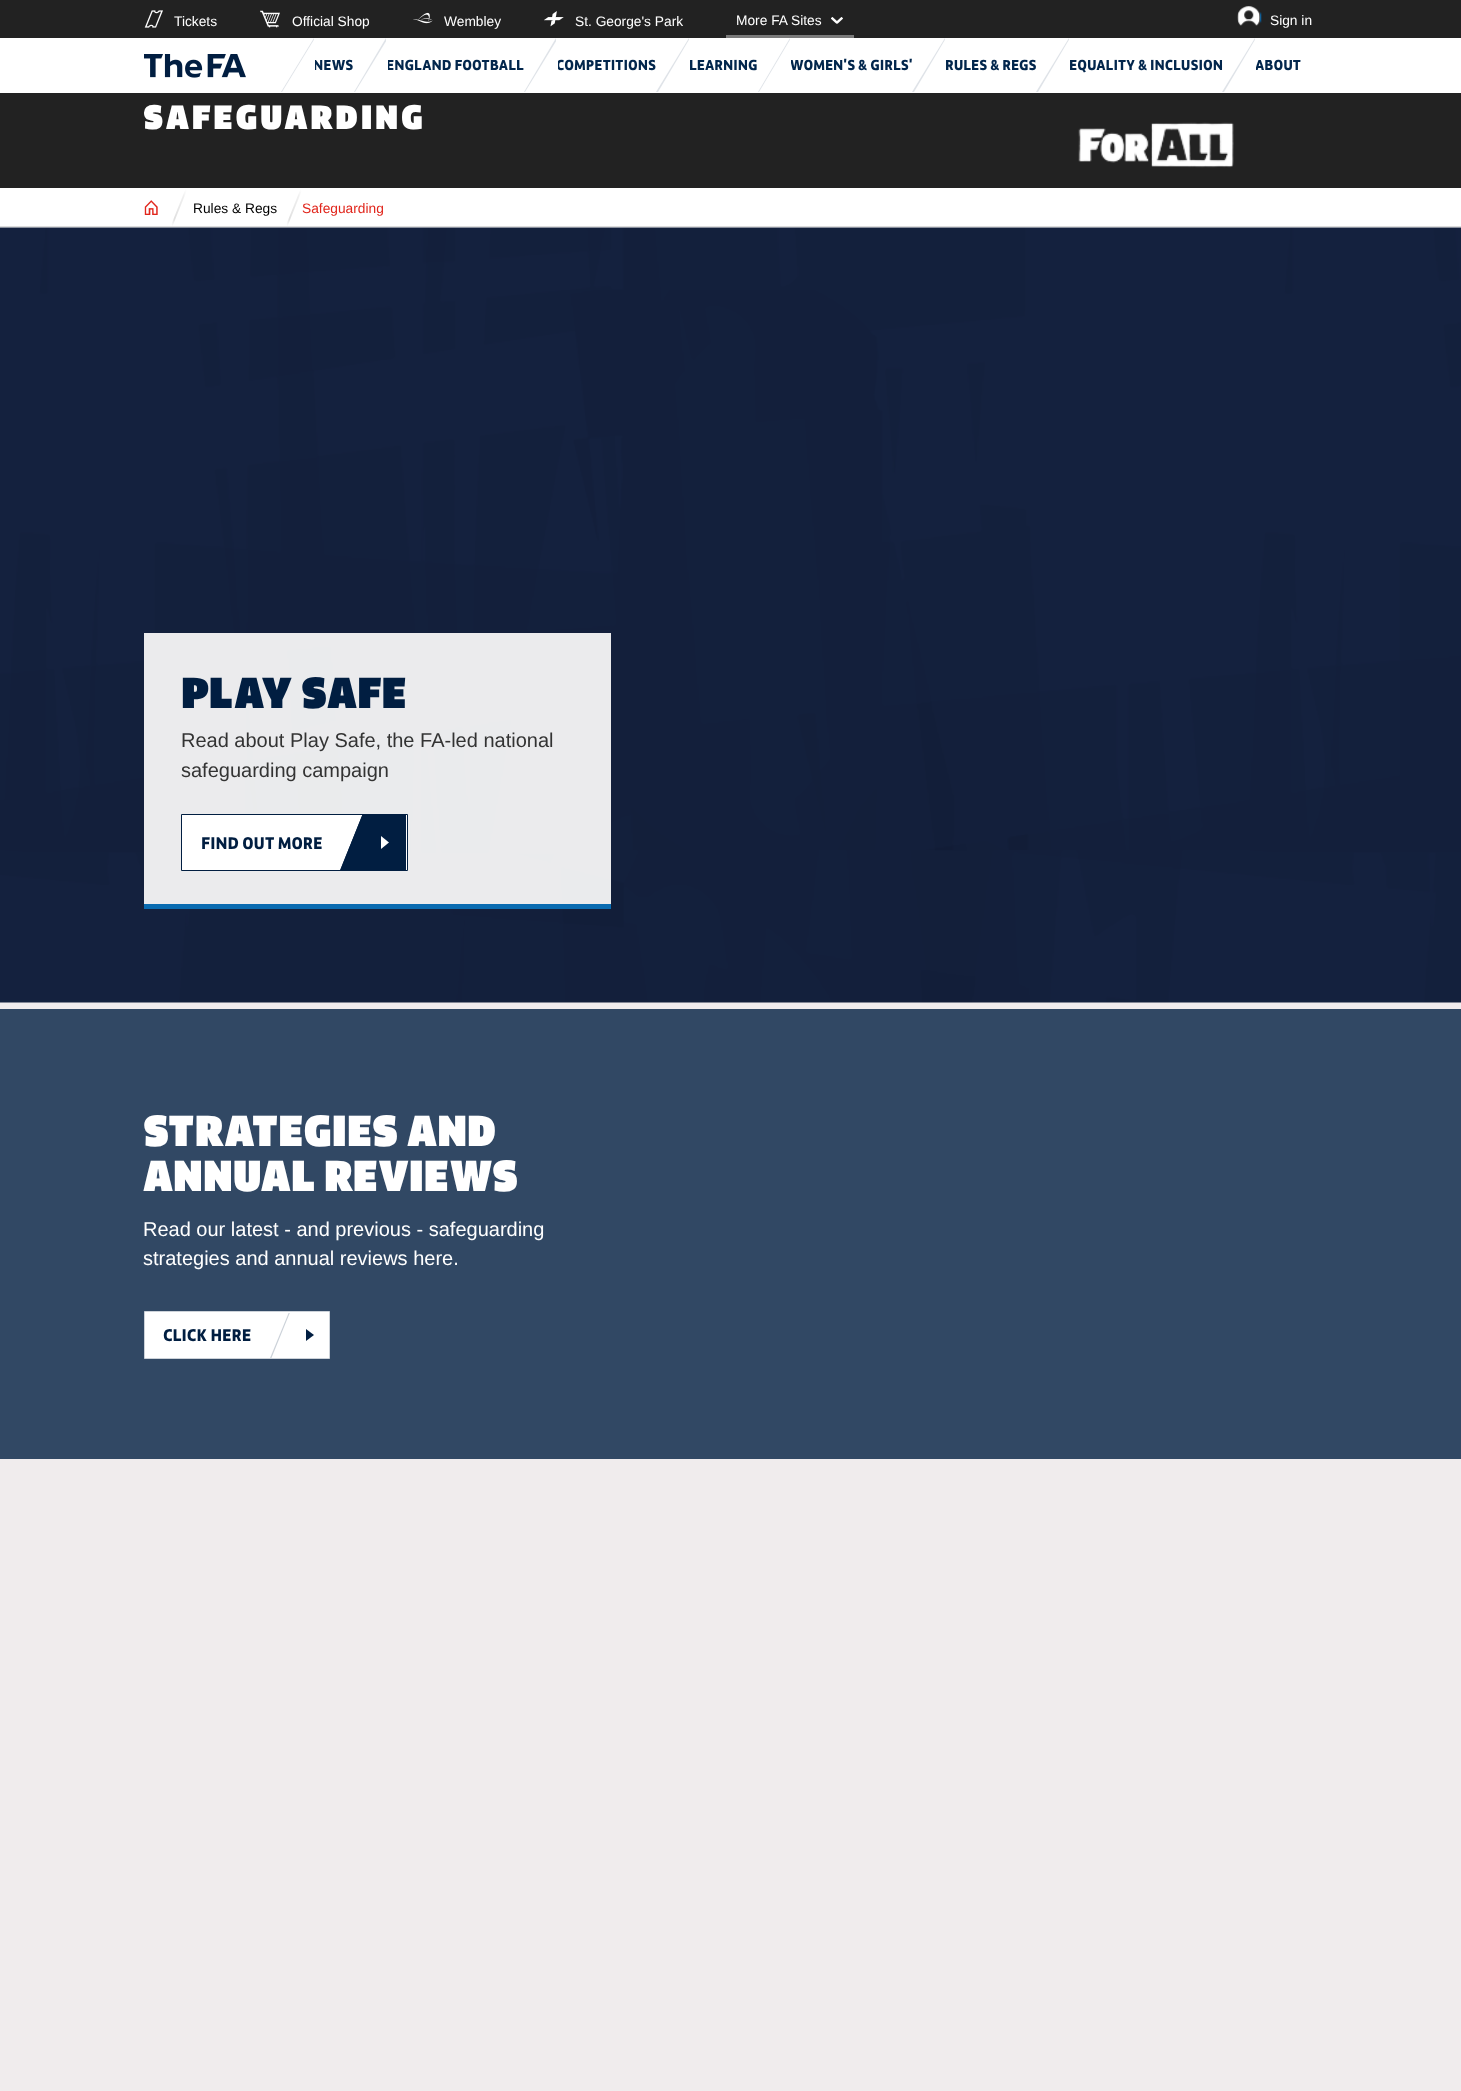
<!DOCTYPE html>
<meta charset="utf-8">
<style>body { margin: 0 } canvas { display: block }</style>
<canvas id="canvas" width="1461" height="2091"></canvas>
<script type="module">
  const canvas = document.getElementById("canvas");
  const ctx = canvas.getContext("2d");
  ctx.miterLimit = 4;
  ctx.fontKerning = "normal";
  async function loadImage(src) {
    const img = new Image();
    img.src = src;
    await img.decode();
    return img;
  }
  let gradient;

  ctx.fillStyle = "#f0eced";
  ctx.fillRect(0, 0, 1461, 2091);
  ctx.fillStyle = "#222222";
  ctx.fillRect(0, 0, 1461, 38);
  ctx.drawImage(await loadImage("img1.png"), 144, 10, 19, 18);
  ctx.font = "13.75px Liberation Sans";
  ctx.fillStyle = "#ffffff";
  ctx.fillText("Tickets", 174, 26);
  ctx.drawImage(await loadImage("img2.png"), 260, 10, 20, 18);
  ctx.fillText("Official Shop", 292, 26);
  ctx.drawImage(await loadImage("img3.png"), 413, 12, 20, 12);
  ctx.fillText("Wembley", 444, 26);
  ctx.drawImage(await loadImage("img4.png"), 544, 11, 20, 16);
  ctx.fillText("St. George's Park", 575, 26);
  ctx.fillStyle = "#7a7a7a";
  ctx.fillRect(726, 35, 128, 3);
  ctx.fillStyle = "#ffffff";
  ctx.fillText("More FA Sites", 736, 25);
  ctx.drawImage(await loadImage("img5.png"), 831, 17, 12, 7);
  ctx.drawImage(await loadImage("img6.png"), 1237, 6, 25, 20);
  ctx.fillText("Sign in", 1270, 25);
  ctx.fillRect(0, 38, 1461, 55);
  ctx.fillStyle = "#dfe3e8";
  ctx.beginPath();
  ctx.moveTo(314, 92);
  ctx.lineTo(281, 92);
  ctx.lineTo(314, 38);
  ctx.closePath();
  ctx.fill();
  ctx.font = "bold 15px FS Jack";
  ctx.fillStyle = "#02264c";
  ctx.fillText("NEWS", 313, 70);
  ctx.fillStyle = "#ffffff";
  ctx.beginPath();
  ctx.moveTo(315, 92);
  ctx.lineTo(282, 92);
  ctx.lineTo(315, 38);
  ctx.closePath();
  ctx.fill();
  ctx.fillStyle = "#dfe3e8";
  ctx.beginPath();
  ctx.moveTo(386, 92);
  ctx.lineTo(354, 92);
  ctx.lineTo(386, 38);
  ctx.closePath();
  ctx.fill();
  ctx.fillStyle = "#02264c";
  ctx.fillText("ENGLAND FOOTBALL", 386, 70);
  ctx.fillStyle = "#ffffff";
  ctx.beginPath();
  ctx.moveTo(388, 92);
  ctx.lineTo(355, 92);
  ctx.lineTo(388, 38);
  ctx.closePath();
  ctx.fill();
  ctx.fillStyle = "#dfe3e8";
  ctx.beginPath();
  ctx.moveTo(556, 92);
  ctx.lineTo(524, 92);
  ctx.lineTo(556, 38);
  ctx.closePath();
  ctx.fill();
  ctx.fillStyle = "#02264c";
  ctx.fillText("COMPETITIONS", 556, 70);
  ctx.fillStyle = "#ffffff";
  ctx.beginPath();
  ctx.moveTo(558, 92);
  ctx.lineTo(525, 92);
  ctx.lineTo(558, 38);
  ctx.closePath();
  ctx.fill();
  ctx.fillStyle = "#dfe3e8";
  ctx.beginPath();
  ctx.moveTo(689, 92);
  ctx.lineTo(656, 92);
  ctx.lineTo(689, 38);
  ctx.closePath();
  ctx.fill();
  ctx.fillStyle = "#02264c";
  ctx.fillText("LEARNING", 689, 70);
  ctx.fillStyle = "#ffffff";
  ctx.beginPath();
  ctx.moveTo(690, 92);
  ctx.lineTo(658, 92);
  ctx.lineTo(690, 38);
  ctx.closePath();
  ctx.fill();
  ctx.fillStyle = "#02264c";
  ctx.fillText("WOMEN'S & GIRLS'", 790, 70);
  ctx.fillStyle = "#dfe3e8";
  ctx.beginPath();
  ctx.moveTo(790, 92);
  ctx.lineTo(758, 92);
  ctx.lineTo(790, 38);
  ctx.closePath();
  ctx.fill();
  ctx.fillStyle = "#ffffff";
  ctx.beginPath();
  ctx.moveTo(791, 92);
  ctx.lineTo(759, 92);
  ctx.lineTo(791, 38);
  ctx.closePath();
  ctx.fill();
  ctx.fillStyle = "#dfe3e8";
  ctx.beginPath();
  ctx.moveTo(945, 92);
  ctx.lineTo(912, 92);
  ctx.lineTo(945, 38);
  ctx.closePath();
  ctx.fill();
  ctx.fillStyle = "#02264c";
  ctx.fillText("RULES & REGS", 945, 70);
  ctx.fillStyle = "#ffffff";
  ctx.beginPath();
  ctx.moveTo(946, 92);
  ctx.lineTo(914, 92);
  ctx.lineTo(946, 38);
  ctx.closePath();
  ctx.fill();
  ctx.fillStyle = "#dfe3e8";
  ctx.beginPath();
  ctx.moveTo(1069, 92);
  ctx.lineTo(1036, 92);
  ctx.lineTo(1069, 38);
  ctx.closePath();
  ctx.fill();
  ctx.fillStyle = "#02264c";
  ctx.fillText("EQUALITY & INCLUSION", 1069, 70);
  ctx.fillStyle = "#ffffff";
  ctx.beginPath();
  ctx.moveTo(1070, 92);
  ctx.lineTo(1038, 92);
  ctx.lineTo(1070, 38);
  ctx.closePath();
  ctx.fill();
  ctx.fillStyle = "#dfe3e8";
  ctx.beginPath();
  ctx.moveTo(1255, 92);
  ctx.lineTo(1222, 92);
  ctx.lineTo(1255, 38);
  ctx.closePath();
  ctx.fill();
  ctx.fillStyle = "#02264c";
  ctx.fillText("ABOUT", 1255, 70);
  ctx.fillStyle = "#ffffff";
  ctx.beginPath();
  ctx.moveTo(1256, 92);
  ctx.lineTo(1224, 92);
  ctx.lineTo(1256, 38);
  ctx.closePath();
  ctx.fill();
  ctx.drawImage(await loadImage("img7.png"), 144, 54, 102, 24);
  ctx.fillStyle = "#222222";
  ctx.fillRect(0, 93, 1461, 95);
  ctx.letterSpacing = "2.5px";
  ctx.font = "35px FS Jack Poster";
  ctx.fillStyle = "#ffffff";
  ctx.fillText("SAFEGUARDING", 143, 129);
  ctx.drawImage(await loadImage("img8.png"), 1078, 122, 156, 46);
  ctx.fillRect(0, 188, 1461, 40);
  ctx.fillStyle = "#dcdcdc";
  ctx.fillRect(0, 226, 1461, 1);
  ctx.drawImage(await loadImage("img9.png"), 144, 200, 14, 15);
  ctx.save();
  ctx.beginPath();
  ctx.rect(170, 189, 18, 37);
  ctx.clip();
  ctx.beginPath();
  ctx.moveTo(172, 225);
  ctx.lineTo(186.5, 189);
  gradient = ctx.createLinearGradient(186, 189, 161, 199);
  gradient.addColorStop(0, "#ffffff");
  gradient.addColorStop(0.19, "#f0f0f0");
  gradient.addColorStop(0.81, "#e0e0e0");
  gradient.addColorStop(1, "#ffffff");
  ctx.strokeStyle = gradient;
  ctx.lineWidth = 1.8;
  ctx.lineCap = "square";
  ctx.stroke();
  ctx.restore();
  ctx.letterSpacing = "0px";
  ctx.font = "13.75px Liberation Sans";
  ctx.fillStyle = "#000000";
  ctx.fillText("Rules & Regs", 193, 213);
  ctx.fillStyle = "#e1261c";
  ctx.fillText("Safeguarding", 302, 213);
  ctx.save();
  ctx.beginPath();
  ctx.rect(285, 189, 18, 37);
  ctx.clip();
  ctx.beginPath();
  ctx.moveTo(287, 225);
  ctx.lineTo(301.5, 189);
  gradient = ctx.createLinearGradient(301, 189, 276, 199);
  gradient.addColorStop(0, "#ffffff");
  gradient.addColorStop(0.19, "#f0f0f0");
  gradient.addColorStop(0.81, "#e0e0e0");
  gradient.addColorStop(1, "#ffffff");
  ctx.strokeStyle = gradient;
  ctx.lineWidth = 1.8;
  ctx.lineCap = "square";
  ctx.stroke();
  ctx.restore();
  ctx.drawImage(await loadImage("img10.png"), 0, 227, 1461, 776);
  ctx.fillStyle = "rgba(247, 247, 247, 0.95)";
  ctx.fillRect(144, 633, 467, 271);
  ctx.font = "45px FS Jack Poster";
  ctx.fillStyle = "#011e41";
  ctx.fillText("PLAY SAFE", 181, 708);
  ctx.font = "20px Liberation Sans";
  ctx.fillStyle = "#333333";
  ctx.fillText("Read about Play Safe, the FA-led national", 181, 747);
  ctx.fillText("safeguarding campaign", 181, 777);
  ctx.fillStyle = "#ffffff";
  ctx.beginPath();
  ctx.rect(181.5, 814.5, 226, 56);
  ctx.fill();
  ctx.strokeStyle = "#011e41";
  ctx.stroke();
  ctx.font = "bold 17.5px FS Jack";
  ctx.fillStyle = "#011e41";
  ctx.fillText("FIND OUT MORE", 201, 849);
  ctx.save();
  ctx.beginPath();
  ctx.rect(183, 815, 223, 55);
  ctx.clip();
  ctx.beginPath();
  ctx.moveTo(378, 776);
  ctx.lineTo(455, 807);
  ctx.lineTo(414, 909);
  ctx.lineTo(337, 878);
  ctx.closePath();
  ctx.fill();
  ctx.beginPath();
  ctx.moveTo(378, 776);
  ctx.lineTo(379, 777);
  ctx.lineTo(338, 878);
  ctx.lineTo(337, 878);
  ctx.closePath();
  ctx.fill();
  ctx.restore();
  ctx.fillStyle = "#ffffff";
  ctx.beginPath();
  ctx.moveTo(381, 849);
  ctx.lineTo(381, 836);
  ctx.lineTo(389, 842.5);
  ctx.closePath();
  ctx.fill();
  ctx.fillStyle = "#096bb1";
  ctx.fillRect(144, 904, 467, 5);
  ctx.fillStyle = "#314864";
  ctx.fillRect(0, 1009, 1461, 450);
  ctx.font = "45px FS Jack Poster";
  ctx.fillStyle = "#ffffff";
  ctx.fillText("STRATEGIES AND", 143, 1146);
  ctx.fillText("ANNUAL REVIEWS", 143, 1191);
  ctx.font = "20px Liberation Sans";
  ctx.fillText("Read our latest - and previous - safeguarding", 143, 1236);
  ctx.fillText("strategies and annual reviews here.", 143, 1265);
  ctx.beginPath();
  ctx.rect(144.5, 1311.5, 185, 47);
  ctx.fill();
  ctx.strokeStyle = "#ccd2d9";
  ctx.stroke();
  ctx.font = "bold 17.5px FS Jack";
  ctx.fillStyle = "#011e41";
  ctx.fillText("CLICK HERE", 163, 1341);
  ctx.save();
  ctx.beginPath();
  ctx.rect(145, 1313, 184, 45);
  ctx.clip();
  ctx.fillStyle = "#ccd2d9";
  ctx.beginPath();
  ctx.moveTo(303, 1278);
  ctx.lineTo(304, 1278);
  ctx.lineTo(269, 1364);
  ctx.lineTo(268, 1363);
  ctx.closePath();
  ctx.fill();
  ctx.restore();
  ctx.beginPath();
  ctx.moveTo(306, 1341);
  ctx.lineTo(306, 1329);
  ctx.lineTo(314, 1335);
  ctx.closePath();
  ctx.fill();
</script>
